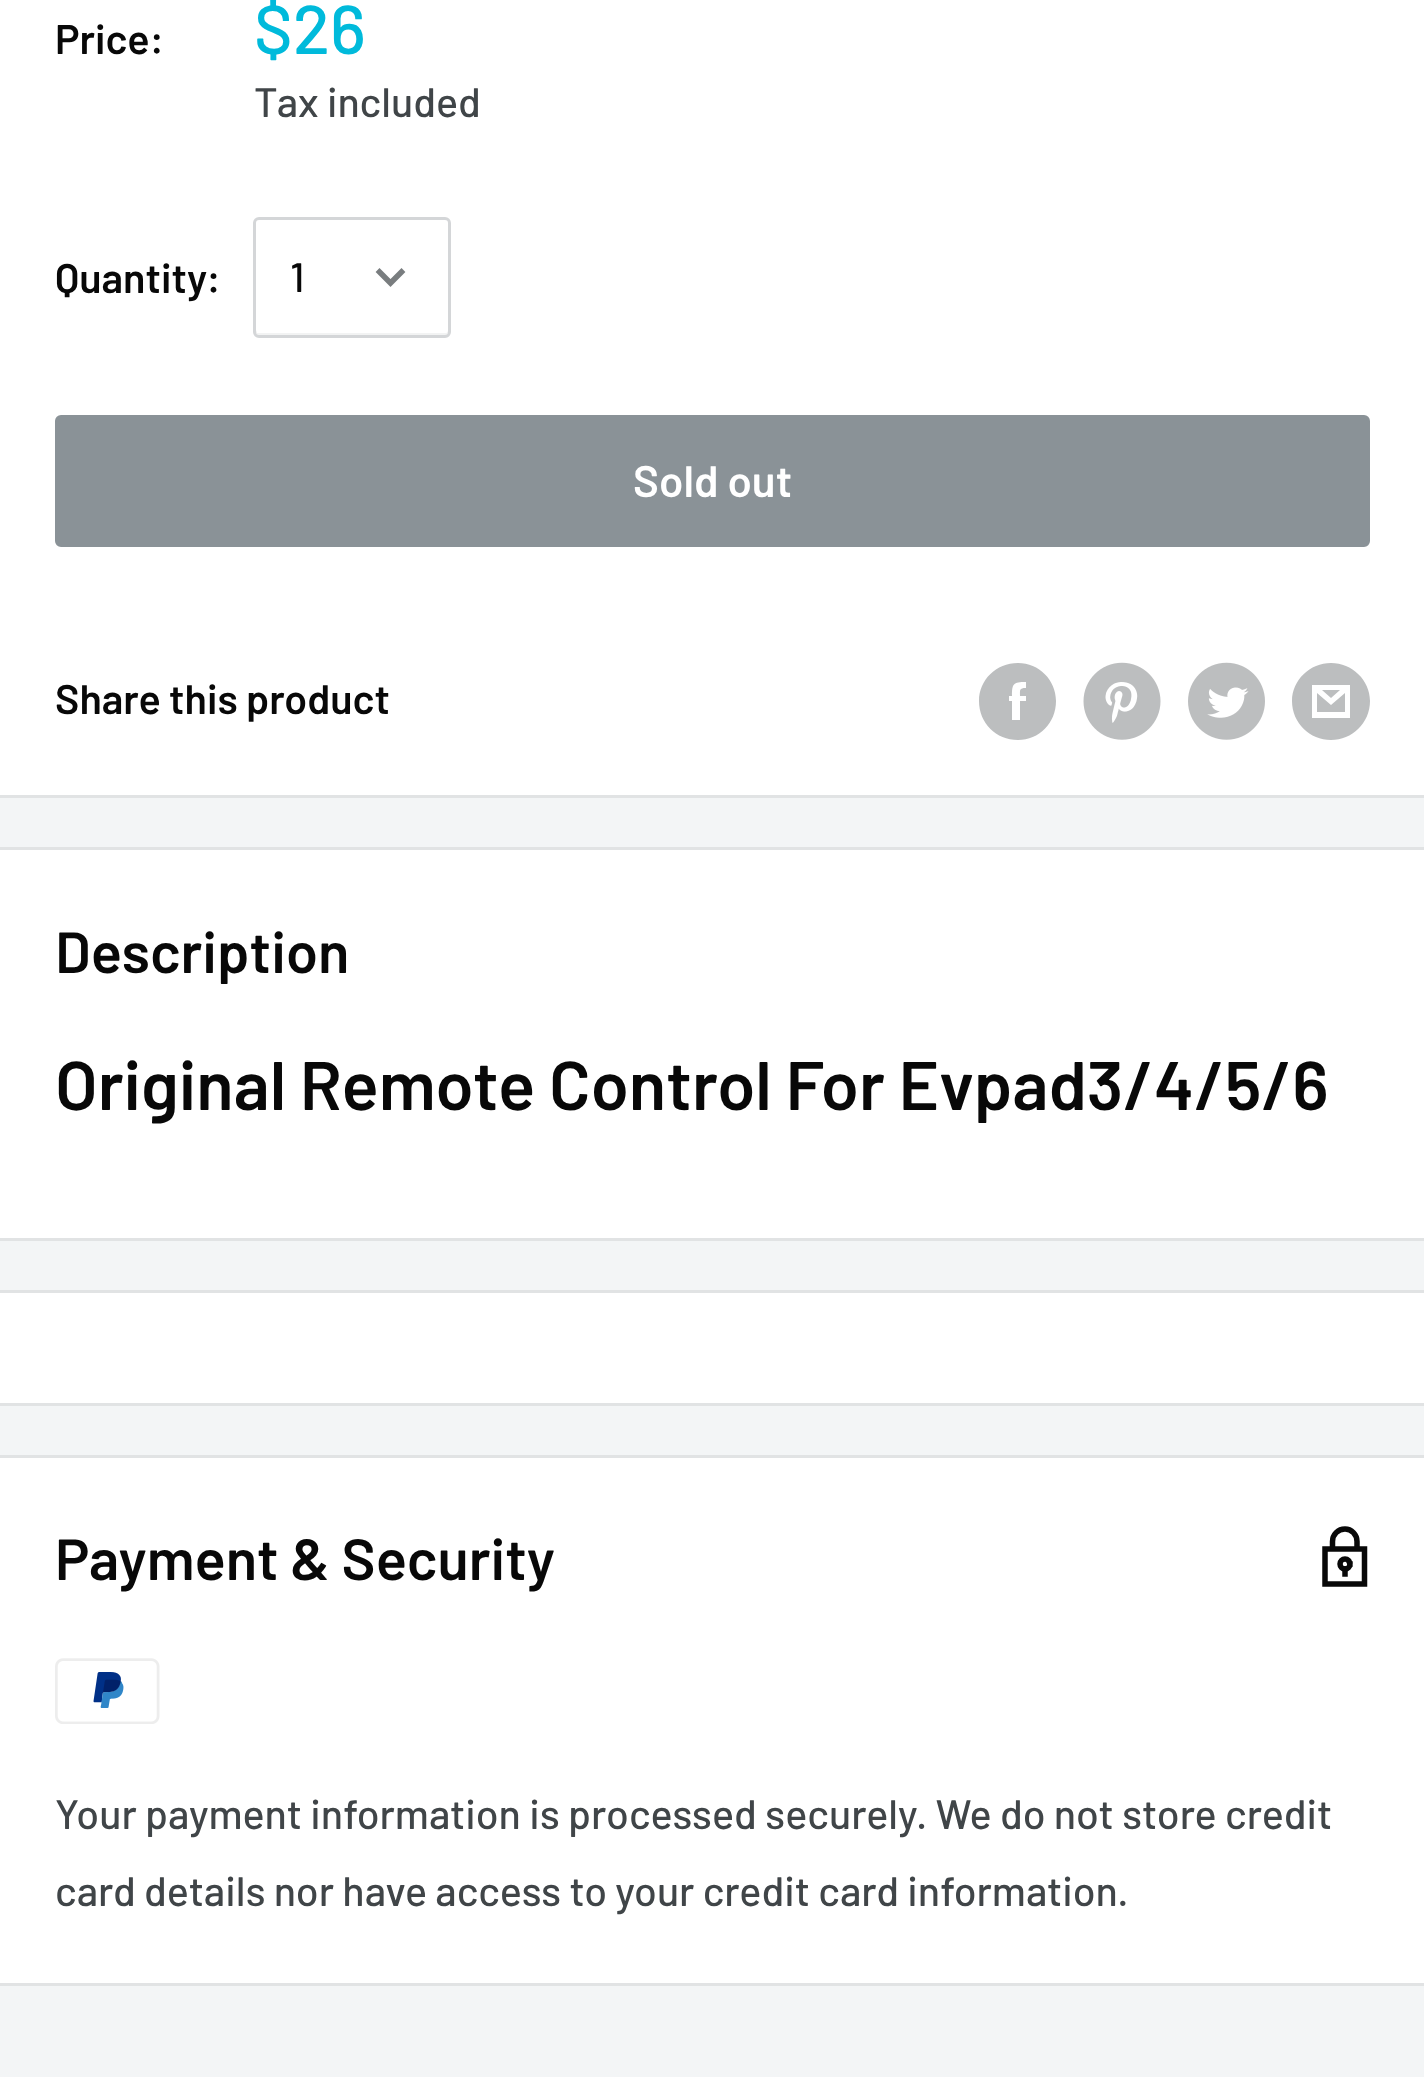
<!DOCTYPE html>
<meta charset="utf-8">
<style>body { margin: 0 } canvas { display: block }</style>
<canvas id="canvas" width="1424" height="2077"></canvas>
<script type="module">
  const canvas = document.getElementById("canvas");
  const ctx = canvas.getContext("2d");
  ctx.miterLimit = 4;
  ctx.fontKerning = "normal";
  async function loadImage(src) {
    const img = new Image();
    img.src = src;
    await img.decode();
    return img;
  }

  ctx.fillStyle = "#f3f5f6";
  ctx.fillRect(0, 0, 1424, 2077);
  ctx.fillStyle = "#ffffff";
  ctx.fillRect(0, 0, 1424, 795);
  ctx.fillStyle = "#e1e3e4";
  ctx.fillRect(0, 795, 1424, 3);
  ctx.font = "600 41.25px Barlow";
  ctx.fillStyle = "#080808";
  ctx.fillText("Price:", 55, 54);
  ctx.font = "500 68.75px Barlow";
  ctx.fillStyle = "#00badb";
  ctx.fillText("$26", 254, 54);
  ctx.font = "500 41.25px Barlow";
  ctx.fillStyle = "#404548";
  ctx.fillText("Tax included", 254, 117);
  ctx.font = "600 41.25px Barlow";
  ctx.fillStyle = "#080808";
  ctx.fillText("Quantity:", 55, 293);
  ctx.fillStyle = "#f2f3f3";
  ctx.beginPath();
  ctx.moveTo(256, 330);
  ctx.lineTo(256, 333);
  ctx.bezierCurveTo(256, 335, 257, 336, 259, 336);
  ctx.lineTo(445, 336);
  ctx.bezierCurveTo(447, 336, 448, 335, 448, 333);
  ctx.lineTo(448, 330);
  ctx.bezierCurveTo(448, 331, 447, 333, 446, 333);
  ctx.lineTo(257, 333);
  ctx.lineTo(257, 332);
  ctx.closePath();
  ctx.fill();
  ctx.beginPath();
  ctx.roundRect(254.5, 218.5, 195, 118, 4.5);
  ctx.strokeStyle = "#d4d6d8";
  ctx.lineWidth = 3;
  ctx.stroke();
  ctx.font = "500 41.25px Barlow";
  ctx.fillStyle = "#080808";
  ctx.fillText("1", 290, 292);
  ctx.beginPath();
  ctx.moveTo(401.5, 272);
  ctx.lineTo(390.5, 283);
  ctx.lineTo(379.5, 272);
  ctx.strokeStyle = "#797d7f";
  ctx.lineWidth = 5.5;
  ctx.lineCap = "square";
  ctx.stroke();
  ctx.fillStyle = "#8a9297";
  ctx.beginPath();
  ctx.roundRect(56.5, 416.5, 1312, 129, 4.5);
  ctx.fill();
  ctx.strokeStyle = "#8a9297";
  ctx.lineWidth = 3;
  ctx.stroke();
  ctx.font = "600 44px Barlow";
  ctx.fillStyle = "#ffffff";
  ctx.fillText("Sold out", 633, 497);
  ctx.font = "600 41.25px Barlow";
  ctx.fillStyle = "#080808";
  ctx.fillText("Share this product", 55, 714);
  ctx.fillStyle = "#bcbebf";
  ctx.beginPath();
  ctx.moveTo(1018, 740);
  ctx.bezierCurveTo(996, 740, 979, 723, 979, 701);
  ctx.bezierCurveTo(979, 680, 996, 663, 1018, 663);
  ctx.bezierCurveTo(1039, 663, 1056, 680, 1056, 701);
  ctx.bezierCurveTo(1056, 723, 1039, 740, 1018, 740);
  ctx.closePath();
  ctx.moveTo(1026, 696);
  ctx.lineTo(1020, 696);
  ctx.bezierCurveTo(1020, 690, 1019, 688, 1026, 688);
  ctx.lineTo(1026, 682);
  ctx.bezierCurveTo(1013, 682, 1012, 684, 1012, 696);
  ctx.lineTo(1009, 696);
  ctx.lineTo(1009, 701);
  ctx.lineTo(1012, 701);
  ctx.lineTo(1012, 720);
  ctx.lineTo(1020, 720);
  ctx.lineTo(1020, 701);
  ctx.lineTo(1026, 701);
  ctx.closePath();
  ctx.fill("evenodd");
  ctx.drawImage(await loadImage("img1.png"), 1083, 662, 78, 78);
  ctx.drawImage(await loadImage("img2.png"), 1188, 662, 77, 78);
  ctx.beginPath();
  ctx.moveTo(1331, 740);
  ctx.bezierCurveTo(1310, 740, 1292, 723, 1292, 701);
  ctx.bezierCurveTo(1292, 680, 1310, 663, 1331, 663);
  ctx.bezierCurveTo(1352, 663, 1370, 680, 1370, 701);
  ctx.bezierCurveTo(1370, 723, 1352, 740, 1331, 740);
  ctx.closePath();
  ctx.moveTo(1322, 690);
  ctx.lineTo(1340, 690);
  ctx.lineTo(1331, 698);
  ctx.closePath();
  ctx.moveTo(1345, 693);
  ctx.lineTo(1345, 712);
  ctx.lineTo(1317, 712);
  ctx.lineTo(1317, 693);
  ctx.lineTo(1331, 705);
  ctx.closePath();
  ctx.moveTo(1350, 685);
  ctx.lineTo(1312, 685);
  ctx.lineTo(1312, 718);
  ctx.lineTo(1350, 718);
  ctx.closePath();
  ctx.fill();
  ctx.fillStyle = "#ffffff";
  ctx.fillRect(0, 850, 1424, 388);
  ctx.fillStyle = "#e1e3e4";
  ctx.fillRect(0, 847, 1424, 3);
  ctx.fillRect(0, 1238, 1424, 3);
  ctx.font = "600 57.75px Barlow";
  ctx.fillStyle = "#080808";
  ctx.fillText("Description", 55, 973);
  ctx.font = "600 68.75px Barlow";
  ctx.fillText("Original Remote Control For Evpad3/4/5/6", 55, 1110);
  ctx.fillStyle = "#ffffff";
  ctx.fillRect(0, 1293, 1424, 110);
  ctx.fillStyle = "#e1e3e4";
  ctx.fillRect(0, 1290, 1424, 3);
  ctx.fillRect(0, 1403, 1424, 3);
  ctx.fillStyle = "#ffffff";
  ctx.fillRect(0, 1458, 1424, 525);
  ctx.fillStyle = "#e1e3e4";
  ctx.fillRect(0, 1455, 1424, 3);
  ctx.fillRect(0, 1983, 1424, 3);
  ctx.font = "600 57.75px Barlow";
  ctx.fillStyle = "#080808";
  ctx.fillText("Payment & Security", 55, 1580);
  ctx.beginPath();
  ctx.moveTo(1345, 1529);
  ctx.bezierCurveTo(1338, 1529, 1332.5, 1534.5, 1332.5, 1541.5);
  ctx.lineTo(1332.5, 1549);
  ctx.lineTo(1357, 1549);
  ctx.lineTo(1357, 1541.5);
  ctx.bezierCurveTo(1357, 1534.5, 1351.5, 1529, 1345, 1529);
  ctx.closePath();
  ctx.moveTo(1325, 1549);
  ctx.lineTo(1364.5, 1549);
  ctx.lineTo(1364.5, 1584);
  ctx.lineTo(1325, 1584);
  ctx.closePath();
  ctx.strokeStyle = "#080808";
  ctx.lineWidth = 5.5;
  ctx.stroke();
  ctx.beginPath();
  ctx.arc(1345, 1564, 5, 0, Math.PI * 2);
  ctx.stroke();
  ctx.beginPath();
  ctx.moveTo(1345, 1569);
  ctx.lineTo(1345, 1574);
  ctx.stroke();
  ctx.drawImage(await loadImage("img3.png"), 55, 1658, 105, 66);
  ctx.font = "500 41.25px Barlow";
  ctx.fillStyle = "#404548";
  ctx.fillText("Your payment information is processed securely. We do not store credit", 55, 1829);
  ctx.fillText("card details nor have access to your credit card information.", 55, 1906);
</script>
